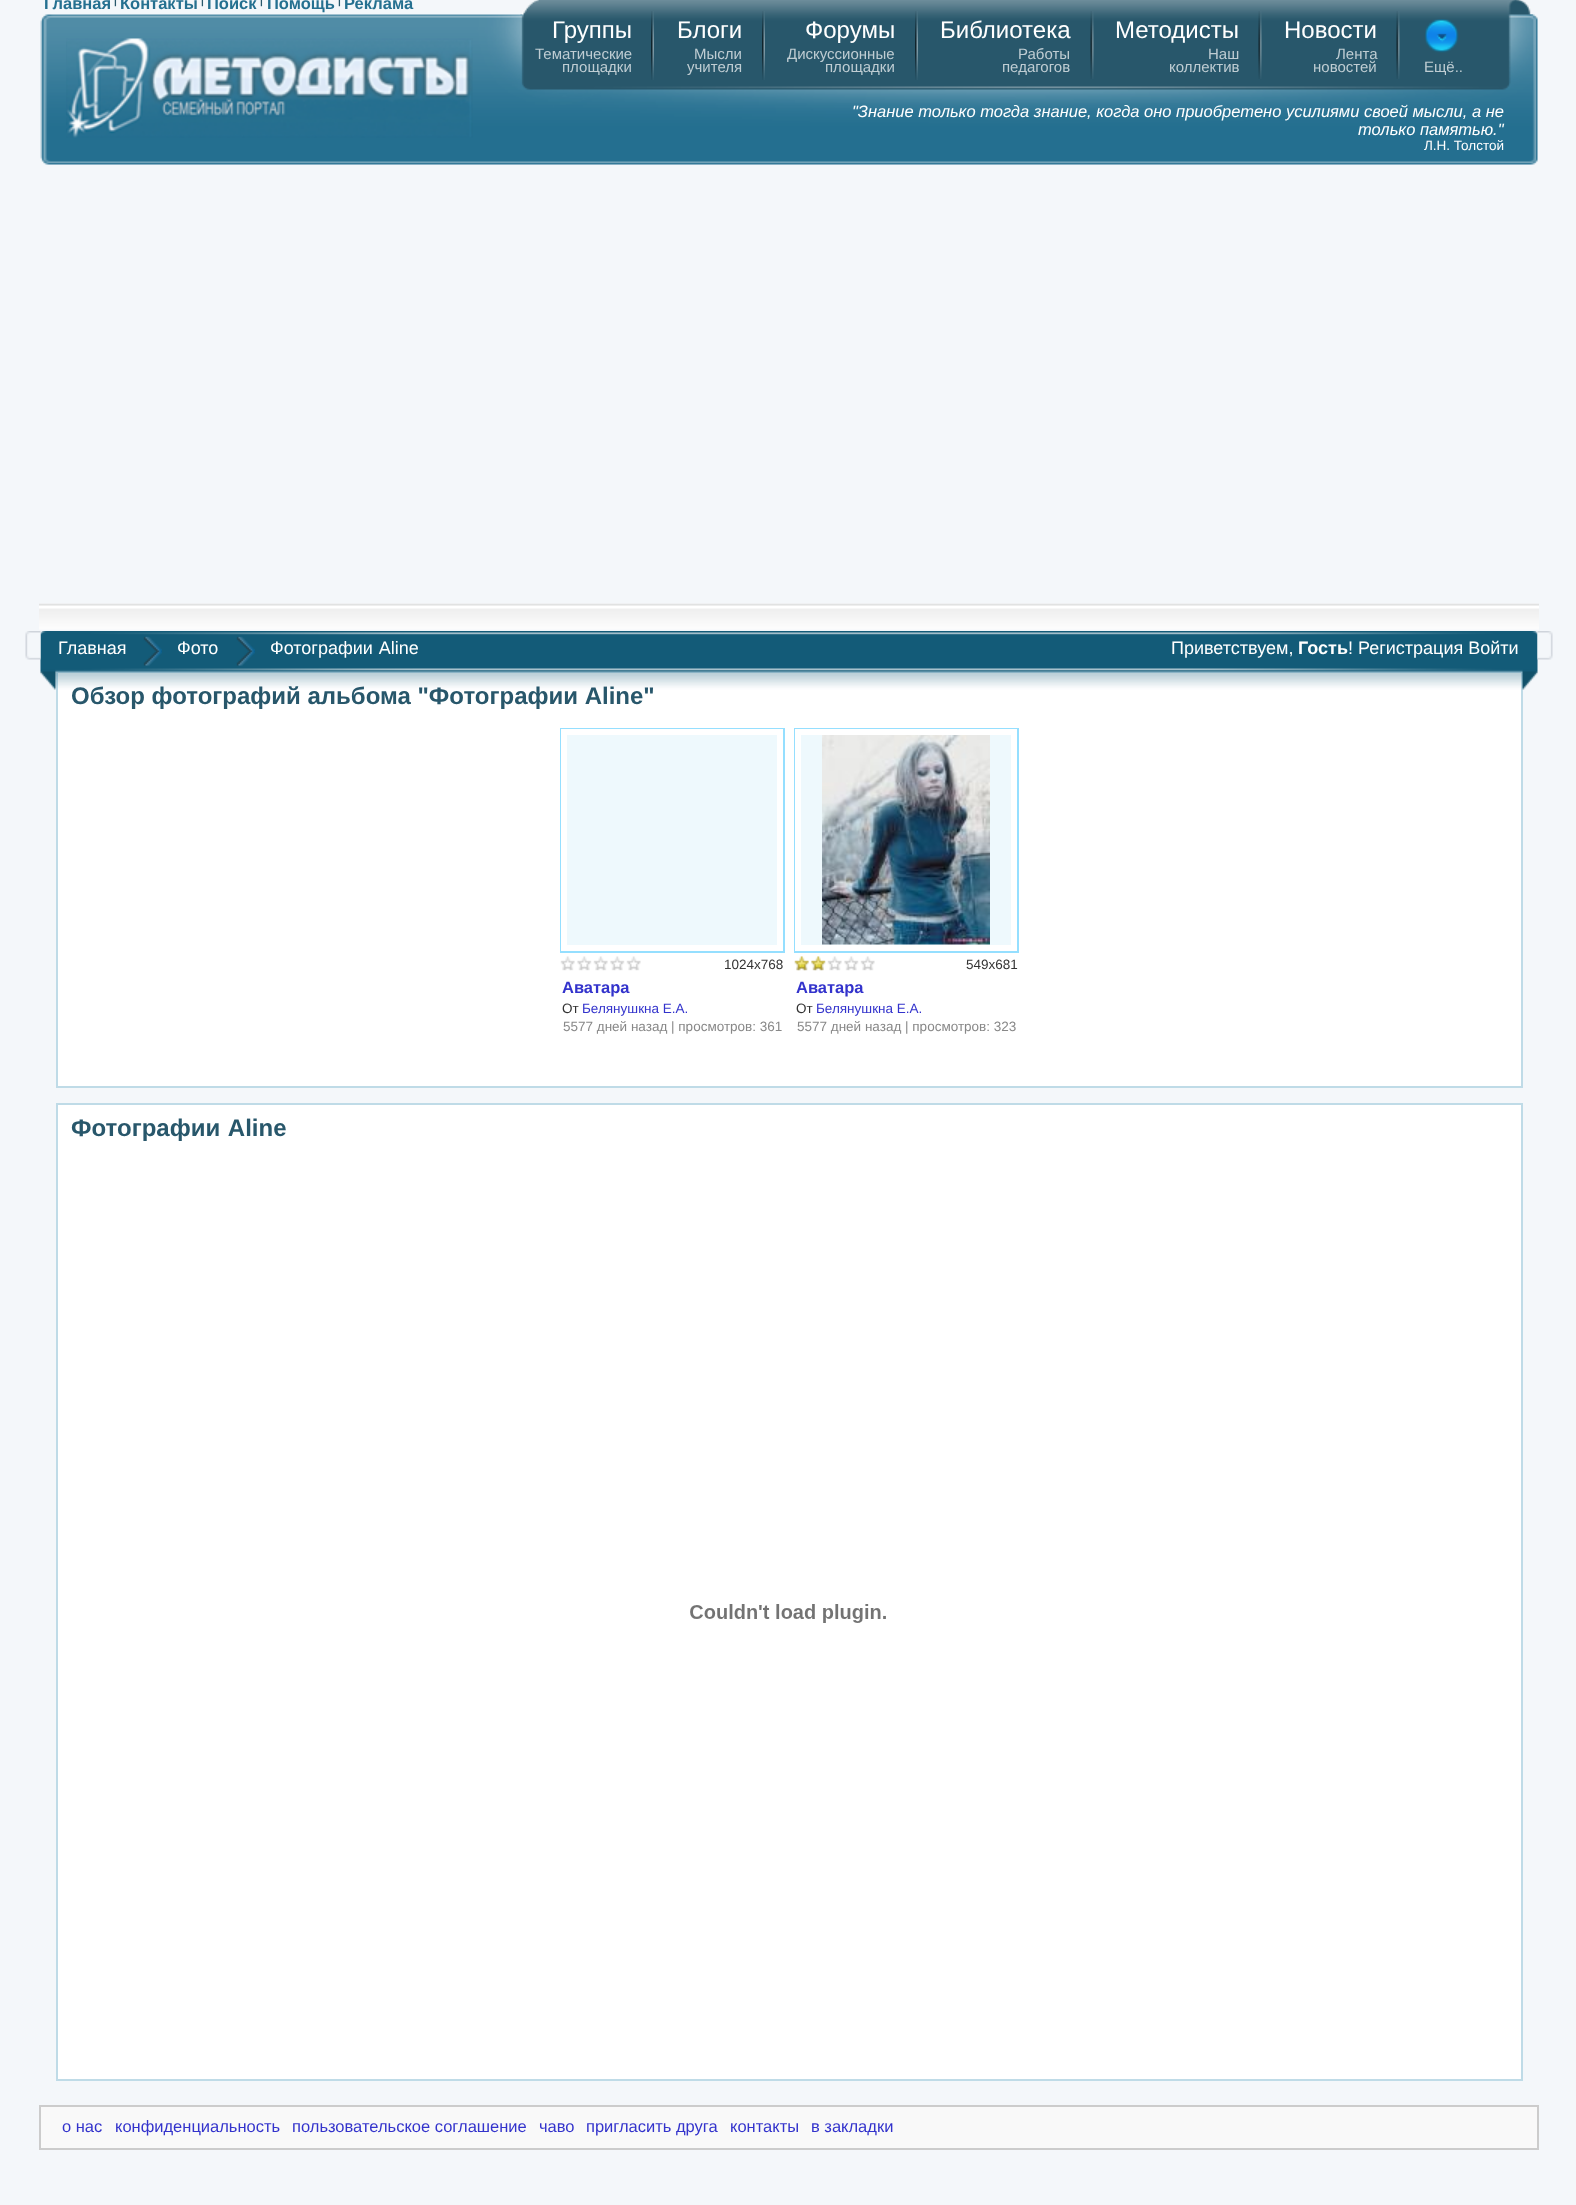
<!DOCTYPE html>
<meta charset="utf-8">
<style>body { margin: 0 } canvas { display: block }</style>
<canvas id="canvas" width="1576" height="2205"></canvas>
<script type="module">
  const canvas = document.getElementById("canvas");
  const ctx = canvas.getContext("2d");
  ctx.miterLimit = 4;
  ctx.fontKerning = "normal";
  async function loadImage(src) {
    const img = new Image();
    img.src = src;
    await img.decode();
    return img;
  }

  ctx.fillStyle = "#f4f7fa";
  ctx.fillRect(0, 0, 1576, 2205);
  ctx.drawImage(await loadImage("img1.png"), 40, 14, 1498, 151);
  ctx.font = "bold 16.5px Liberation Sans";
  ctx.fillStyle = "#257090";
  ctx.fillText("Главная", 44, 9);
  ctx.font = "bold 10px Liberation Sans";
  ctx.fillStyle = "#28576b";
  ctx.fillText("|", 114, 4);
  ctx.font = "bold 16.5px Liberation Sans";
  ctx.fillStyle = "#257090";
  ctx.fillText("Контакты", 120, 9);
  ctx.font = "bold 10px Liberation Sans";
  ctx.fillStyle = "#28576b";
  ctx.fillText("|", 201, 4);
  ctx.font = "bold 16.5px Liberation Sans";
  ctx.fillStyle = "#257090";
  ctx.fillText("Поиск", 207, 9);
  ctx.font = "bold 10px Liberation Sans";
  ctx.fillStyle = "#28576b";
  ctx.fillText("|", 260, 4);
  ctx.font = "bold 16.5px Liberation Sans";
  ctx.fillStyle = "#257090";
  ctx.fillText("Помощь", 267, 9);
  ctx.font = "bold 10px Liberation Sans";
  ctx.fillStyle = "#28576b";
  ctx.fillText("|", 338, 4);
  ctx.font = "bold 16.5px Liberation Sans";
  ctx.fillStyle = "#257090";
  ctx.fillText("Реклама", 344, 9);
  ctx.drawImage(await loadImage("img2.png"), 66, 38, 407, 100);
  ctx.drawImage(await loadImage("img3.png"), 520, 0, 1013, 90);
  ctx.drawImage(await loadImage("img4.png"), 651, 11, 3, 69);
  ctx.font = "24px Liberation Sans";
  ctx.fillStyle = "#ffffff";
  ctx.fillText("Группы", 552, 38);
  ctx.font = "15px Liberation Sans";
  ctx.fillStyle = "#bfcdd3";
  ctx.fillText("Тематические", 535, 59);
  ctx.fillText("площадки", 562, 72);
  ctx.drawImage(await loadImage("img4.png"), 762, 11, 3, 69);
  ctx.font = "24px Liberation Sans";
  ctx.fillStyle = "#ffffff";
  ctx.fillText("Блоги", 677, 38);
  ctx.font = "15px Liberation Sans";
  ctx.fillStyle = "#bfcdd3";
  ctx.fillText("Мысли", 694, 59);
  ctx.fillText("учителя", 687, 72);
  ctx.drawImage(await loadImage("img4.png"), 915, 11, 3, 69);
  ctx.font = "24px Liberation Sans";
  ctx.fillStyle = "#ffffff";
  ctx.fillText("Форумы", 805, 38);
  ctx.font = "15px Liberation Sans";
  ctx.fillStyle = "#bfcdd3";
  ctx.fillText("Дискуссионные", 787, 59);
  ctx.fillText("площадки", 825, 72);
  ctx.drawImage(await loadImage("img5.png"), 1090, 11, 4, 68);
  ctx.font = "24px Liberation Sans";
  ctx.fillStyle = "#ffffff";
  ctx.fillText("Библиотека", 940, 38);
  ctx.font = "15px Liberation Sans";
  ctx.fillStyle = "#bfcdd3";
  ctx.fillText("Работы", 1018, 59);
  ctx.fillText("педагогов", 1002, 72);
  ctx.drawImage(await loadImage("img5.png"), 1258, 11, 4, 68);
  ctx.font = "24px Liberation Sans";
  ctx.fillStyle = "#ffffff";
  ctx.fillText("Методисты", 1115, 38);
  ctx.font = "15px Liberation Sans";
  ctx.fillStyle = "#bfcdd3";
  ctx.fillText("Наш", 1208, 59);
  ctx.fillText("коллектив", 1169, 72);
  ctx.drawImage(await loadImage("img5.png"), 1396, 11, 4, 68);
  ctx.font = "24px Liberation Sans";
  ctx.fillStyle = "#ffffff";
  ctx.fillText("Новости", 1284, 38);
  ctx.font = "15px Liberation Sans";
  ctx.fillStyle = "#bfcdd3";
  ctx.fillText("Лента", 1336, 59);
  ctx.fillText("новостей", 1313, 72);
  ctx.drawImage(await loadImage("img6.png"), 1425, 19, 34, 34);
  ctx.fillText("Ещё..", 1424, 72);
  ctx.font = "italic 16.5px Liberation Sans";
  ctx.fillStyle = "#ffffff";
  ctx.fillText("\"Знание только тогда знание, когда оно приобретено усилиями своей мысли, а не", 852, 117);
  ctx.fillText("только памятью.\"", 1358, 135);
  ctx.font = "13.5px Liberation Sans";
  ctx.fillText("Л.Н. Толстой", 1424, 150);
  ctx.drawImage(await loadImage("img7.png"), 39, 603, 1500, 27);
  ctx.beginPath();
  ctx.rect(57, 672, 1465, 415);
  ctx.fill();
  ctx.strokeStyle = "#bfdbe7";
  ctx.lineWidth = 2;
  ctx.stroke();
  ctx.font = "bold 24px Liberation Sans";
  ctx.fillStyle = "#28576b";
  ctx.fillText("Обзор фотографий альбома \"Фотографии Aline\"", 71, 704);
  ctx.drawImage(await loadImage("img8.png"), 40, 631, 1498, 59);
  ctx.drawImage(await loadImage("img9.png"), 25, 631, 16, 29);
  ctx.font = "18px Liberation Sans";
  ctx.fillStyle = "#ffffff";
  ctx.fillText("Главная", 58, 654);
  ctx.drawImage(await loadImage("img10.png"), 143, 636, 19, 30);
  ctx.fillText("Фото", 177, 654);
  ctx.drawImage(await loadImage("img10.png"), 236, 636, 19, 30);
  ctx.wordSpacing = "1px";
  ctx.fillText("Фотографии Aline", 270, 654);
  ctx.wordSpacing = "0px";
  ctx.fillText("Приветствуем,", 1171, 654);
  ctx.font = "bold 18px Liberation Sans";
  ctx.fillText("Гость", 1298, 654);
  ctx.font = "18px Liberation Sans";
  ctx.fillText("! Регистрация Войти", 1348, 654);
  ctx.drawImage(await loadImage("img11.png"), 1537, 631, 16, 29);
  ctx.fillStyle = "#eef9fd";
  ctx.fillRect(567, 735, 210, 210);
  ctx.strokeStyle = "#95dfff";
  ctx.strokeRect(561, 729, 223, 223);
  ctx.strokeStyle = "#ffffff";
  ctx.lineWidth = 6;
  ctx.strokeRect(564, 732, 216, 216);
  ctx.drawImage(await loadImage("img12.png"), 560, 956, 81, 15);
  ctx.font = "13.5px Liberation Sans";
  ctx.fillStyle = "#333333";
  ctx.fillText("1024x768", 724, 969);
  ctx.font = "bold 16.5px Liberation Sans";
  ctx.fillStyle = "#3333cc";
  ctx.fillText("Аватара", 562, 993);
  ctx.font = "13.5px Liberation Sans";
  ctx.fillStyle = "#333333";
  ctx.fillText("От", 562, 1013);
  ctx.fillStyle = "#3333cc";
  ctx.fillText("Белянушкна Е.А.", 582, 1013);
  ctx.fillStyle = "#888888";
  ctx.fillText("5577 дней назад | просмотров: 361", 563, 1031);
  ctx.fillStyle = "#eef9fd";
  ctx.fillRect(801, 735, 210, 210);
  ctx.drawImage(await loadImage("img13.png"), 822, 735, 168, 210);
  ctx.strokeStyle = "#95dfff";
  ctx.lineWidth = 2;
  ctx.strokeRect(795, 729, 223, 223);
  ctx.strokeStyle = "#ffffff";
  ctx.lineWidth = 6;
  ctx.strokeRect(798, 732, 216, 216);
  ctx.drawImage(await loadImage("img14.png"), 794, 956, 81, 15);
  ctx.drawImage(await loadImage("img15.png"), 794, 956, 32, 15);
  ctx.fillStyle = "#333333";
  ctx.fillText("549x681", 966, 969);
  ctx.font = "bold 16.5px Liberation Sans";
  ctx.fillStyle = "#3333cc";
  ctx.fillText("Аватара", 796, 993);
  ctx.font = "13.5px Liberation Sans";
  ctx.fillStyle = "#333333";
  ctx.fillText("От", 796, 1013);
  ctx.fillStyle = "#3333cc";
  ctx.fillText("Белянушкна Е.А.", 816, 1013);
  ctx.fillStyle = "#888888";
  ctx.fillText("5577 дней назад | просмотров: 323", 797, 1031);
  ctx.fillStyle = "#ffffff";
  ctx.beginPath();
  ctx.rect(57, 1104, 1465, 976);
  ctx.fill();
  ctx.strokeStyle = "#bfdbe7";
  ctx.lineWidth = 2;
  ctx.stroke();
  ctx.wordSpacing = "1px";
  ctx.font = "bold 24px Liberation Sans";
  ctx.fillStyle = "#28576b";
  ctx.fillText("Фотографии Aline", 71, 1136);
  ctx.drawImage(await loadImage("img16.png"), 690, 1604, 196, 19);
  ctx.fillStyle = "#f9f9f9";
  ctx.beginPath();
  ctx.rect(40, 2106, 1498, 43);
  ctx.fill();
  ctx.strokeStyle = "#cccccc";
  ctx.stroke();
  ctx.wordSpacing = "0px";
  ctx.font = "16.5px Liberation Sans";
  ctx.fillStyle = "#3333cc";
  ctx.fillText("о нас", 62, 2132);
  ctx.fillText("конфиденциальность", 115, 2132);
  ctx.fillText("пользовательское соглашение", 292, 2132);
  ctx.fillText("чаво", 539, 2132);
  ctx.fillText("пригласить друга", 586, 2132);
  ctx.fillText("контакты", 730, 2132);
  ctx.fillText("в закладки", 811, 2132);
</script>
